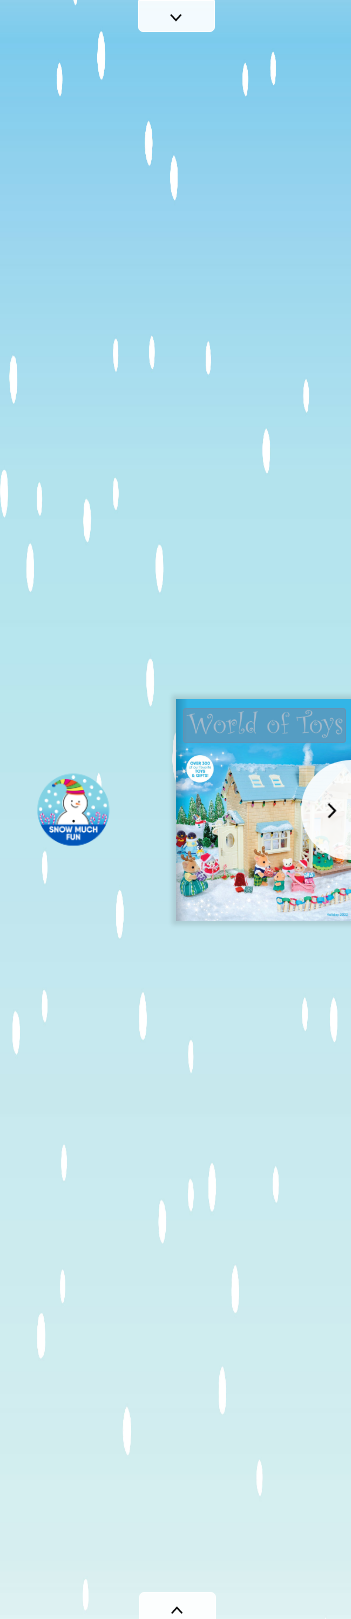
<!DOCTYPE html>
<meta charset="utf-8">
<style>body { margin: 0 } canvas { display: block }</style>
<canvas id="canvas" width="351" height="1619"></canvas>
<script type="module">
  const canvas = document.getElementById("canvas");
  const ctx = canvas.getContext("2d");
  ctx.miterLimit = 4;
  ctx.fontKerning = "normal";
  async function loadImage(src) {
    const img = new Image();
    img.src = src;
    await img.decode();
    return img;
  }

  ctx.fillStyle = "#ffffff";
  ctx.fillRect(0, 0, 351, 1619);
  ctx.drawImage(await loadImage("img1.png"), 0, 0, 351, 1619);
  ctx.fillStyle = "rgba(255, 255, 255, 0.9)";
  ctx.beginPath();
  ctx.roundRect(138.5, 0.5, 76, 31, [0, 0, 4.5, 4.5]);
  ctx.fill();
  ctx.strokeStyle = "#ffffff";
  ctx.stroke();
  ctx.drawImage(await loadImage("img2.png"), 170, 14, 12, 8);
  ctx.fillStyle = "rgba(0, 0, 0, 0.1)";
  ctx.filter = "blur(2px)";
  ctx.beginPath();
  ctx.rect(172, 695, 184, 230);
  ctx.fill();
  ctx.filter = "none";
  ctx.drawImage(await loadImage("img3.png"), 176, 699, 175, 222);
  ctx.fillStyle = "rgba(109, 141, 171, 0.6)";
  ctx.beginPath();
  ctx.roundRect(183, 708, 163, 35, 3);
  ctx.fill();
  ctx.beginPath();
  ctx.roundRect(183.5, 708.5, 162, 34, 2.5);
  ctx.strokeStyle = "rgba(109, 141, 171, 0.6)";
  ctx.stroke();
  ctx.drawImage(await loadImage("img4.png"), 37, 773, 73, 73);
  ctx.fillStyle = "rgba(255, 255, 255, 0.9)";
  ctx.beginPath();
  ctx.arc(351, 810, 50, 0, Math.PI * 2);
  ctx.fill();
  ctx.drawImage(await loadImage("img5.png"), 327, 803, 10, 16);
  ctx.beginPath();
  ctx.moveTo(144, 1592.5);
  ctx.lineTo(211, 1592.5);
  ctx.bezierCurveTo(213.5, 1592.5, 215.5, 1594.5, 215.5, 1597);
  ctx.lineTo(215.5, 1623.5);
  ctx.lineTo(139.5, 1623.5);
  ctx.lineTo(139.5, 1597);
  ctx.bezierCurveTo(139.5, 1594.5, 141.5, 1592.5, 144, 1592.5);
  ctx.closePath();
  ctx.fill();
  ctx.strokeStyle = "#ffffff";
  ctx.stroke();
  ctx.drawImage(await loadImage("img6.png"), 171, 1606, 12, 8);
</script>
